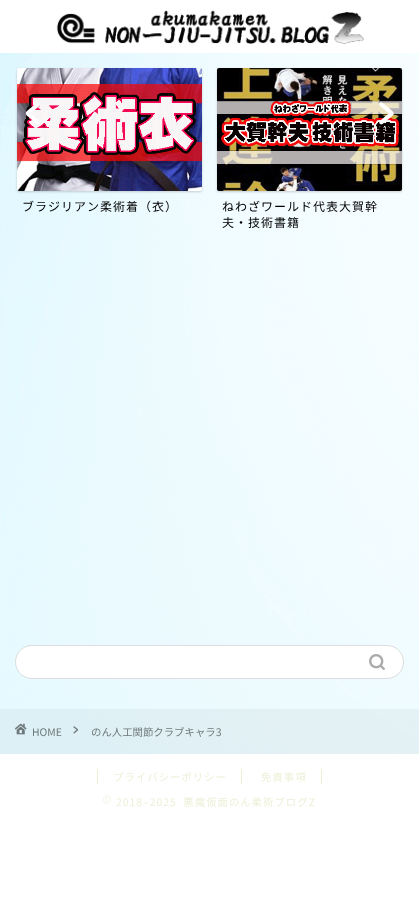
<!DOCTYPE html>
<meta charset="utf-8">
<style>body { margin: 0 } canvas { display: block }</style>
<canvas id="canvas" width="419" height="898"></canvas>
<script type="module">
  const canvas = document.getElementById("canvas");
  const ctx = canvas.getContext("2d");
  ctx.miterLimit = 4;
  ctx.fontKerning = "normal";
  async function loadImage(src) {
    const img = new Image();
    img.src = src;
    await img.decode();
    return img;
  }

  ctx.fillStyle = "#ffffff";
  ctx.fillRect(0, 0, 419, 898);
  ctx.drawImage(await loadImage("img1.png"), 0, 53, 419, 701);
  ctx.drawImage(await loadImage("img2.png"), 56, 10, 308, 34);
  ctx.fillStyle = "rgba(0, 0, 0, 0.18)";
  ctx.filter = "blur(1px)";
  ctx.beginPath();
  ctx.roundRect(17, 69, 185, 123, 2);
  ctx.fill();
  ctx.filter = "none";
  ctx.drawImage(await loadImage("img5.png"), 17, 68, 185, 123);
  ctx.drawImage(await loadImage("img3.png"), 25, 102, 15, 22);
  ctx.filter = "blur(1px)";
  ctx.beginPath();
  ctx.roundRect(217, 69, 185, 123, 2);
  ctx.fill();
  ctx.filter = "none";
  ctx.drawImage(await loadImage("img6.png"), 217, 68, 185, 123);
  ctx.drawImage(await loadImage("img4.png"), 379, 102, 15, 23);
  ctx.letterSpacing = "1px";
  ctx.font = "12px Noto Sans JP";
  ctx.fillStyle = "#000000";
  ctx.fillText("ブラジリアン柔術着（衣）", 22, 211);
  ctx.fillText("ねわざワールド代表大賀幹", 222, 211);
  ctx.fillText("夫・技術書籍", 222, 227);
  ctx.fillStyle = "#ffffff";
  ctx.beginPath();
  ctx.roundRect(15.5, 645.5, 388, 33, 16.5);
  ctx.fill();
  ctx.strokeStyle = "#dddddd";
  ctx.stroke();
  ctx.drawImage(await loadImage("img7.png"), 369, 654, 16, 16);
  ctx.fillStyle = "rgba(0, 0, 0, 0.04)";
  ctx.fillRect(0, 709, 419, 45);
  ctx.drawImage(await loadImage("img8.png"), 15, 723, 12, 12);
  ctx.letterSpacing = "0px";
  ctx.font = "10.4px Noto Sans JP";
  ctx.fillStyle = "#6f787a";
  ctx.fillText("HOME", 32, 736);
  ctx.drawImage(await loadImage("img9.png"), 73, 726, 5, 8);
  ctx.fillText("のん人工関節クラブキャラ3", 91, 736);
  ctx.letterSpacing = "1px";
  ctx.fillStyle = "#edefd7";
  ctx.fillText("プライバシーポリシー", 113, 781);
  ctx.fillRect(241, 769, 1, 15);
  ctx.fillRect(97, 769, 1, 15);
  ctx.fillText("免責事項", 261, 781);
  ctx.fillRect(321, 769, 1, 15);
  ctx.drawImage(await loadImage("img10.png"), 103, 795, 8, 9);
  ctx.fillText("2018–2025  悪魔仮面のん柔術ブログZ", 116, 806);
</script>
